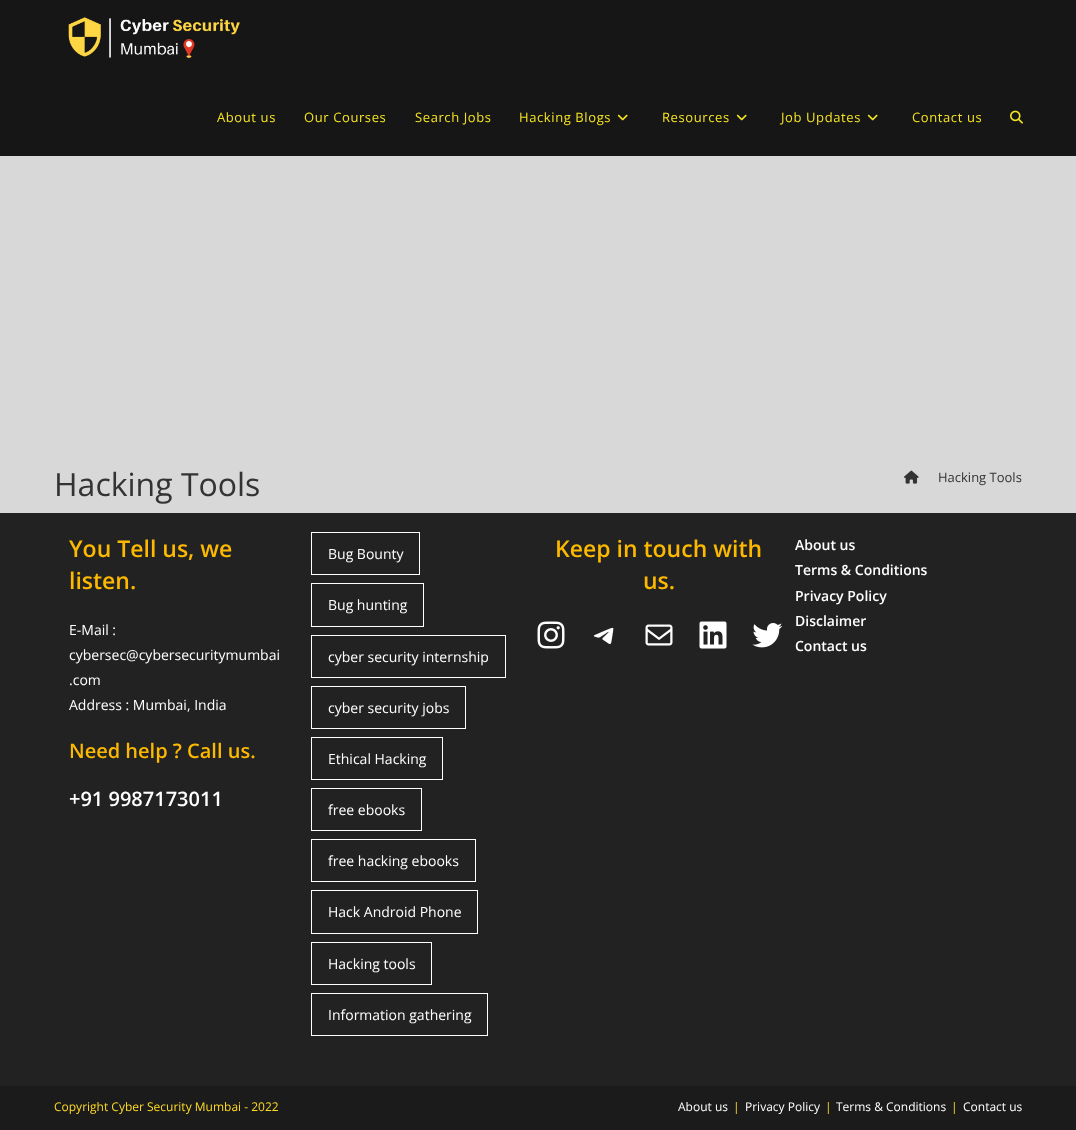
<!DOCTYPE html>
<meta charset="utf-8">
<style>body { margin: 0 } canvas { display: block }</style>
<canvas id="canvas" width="1076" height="1130"></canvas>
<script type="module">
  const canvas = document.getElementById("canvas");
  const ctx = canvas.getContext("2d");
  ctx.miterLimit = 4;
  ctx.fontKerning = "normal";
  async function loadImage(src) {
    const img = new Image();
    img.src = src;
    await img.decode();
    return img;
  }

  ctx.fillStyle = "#222222";
  ctx.fillRect(0, 0, 1076, 1130);
  ctx.fillStyle = "#161616";
  ctx.fillRect(0, 0, 1076, 156);
  ctx.drawImage(await loadImage("img1.png"), 68, 17, 172, 41);
  ctx.letterSpacing = "0.6px";
  ctx.font = "13px Open Sans";
  ctx.fillStyle = "#f4e322";
  ctx.fillText("About us", 217, 122);
  ctx.fillText("Our Courses", 304, 122);
  ctx.fillText("Search Jobs", 415, 122);
  ctx.fillText("Hacking Blogs", 519, 122);
  ctx.drawImage(await loadImage("img2.png"), 617, 114, 11, 7);
  ctx.fillText("Resources", 662, 122);
  ctx.drawImage(await loadImage("img2.png"), 736, 114, 11, 7);
  ctx.fillText("Job Updates", 781, 122);
  ctx.drawImage(await loadImage("img2.png"), 867, 114, 11, 7);
  ctx.fillText("Contact us", 912, 122);
  ctx.drawImage(await loadImage("img3.png"), 1010, 110, 13, 14);
  ctx.fillStyle = "#d8d8d8";
  ctx.fillRect(0, 156, 1076, 357);
  ctx.letterSpacing = "0px";
  ctx.font = "32px Open Sans";
  ctx.fillStyle = "#333333";
  ctx.fillText("Hacking Tools", 54, 496);
  ctx.drawImage(await loadImage("img4.png"), 904, 470, 15, 14);
  ctx.font = "13px Open Sans";
  ctx.fillText("Hacking Tools", 938, 482);
  ctx.font = "600 23px Open Sans";
  ctx.fillStyle = "#fcb900";
  ctx.fillText("You Tell us, we", 69, 557);
  ctx.fillText("listen.", 69, 589);
  ctx.font = "14px Open Sans";
  ctx.fillStyle = "#ffffff";
  ctx.fillText("E-Mail :", 69, 635);
  ctx.fillText("cybersec@cybersecuritymumbai", 69, 660);
  ctx.fillText(".com", 69, 685);
  ctx.fillText("Address : Mumbai, India", 69, 710);
  ctx.font = "600 20px Open Sans";
  ctx.fillStyle = "#fcb900";
  ctx.fillText("Need help ? Call us.", 69, 758);
  ctx.fillStyle = "#ffffff";
  ctx.fillText("+91 9987173011", 69, 806);
  ctx.strokeStyle = "#ffffff";
  ctx.strokeRect(311.5, 532.5, 108, 42);
  ctx.font = "14px Open Sans";
  ctx.fillText("Bug Bounty", 328, 559);
  ctx.strokeRect(311.5, 583.5, 112, 43);
  ctx.fillText("Bug hunting", 328, 610);
  ctx.strokeRect(311.5, 635.5, 194, 42);
  ctx.fillText("cyber security internship", 328, 662);
  ctx.strokeRect(311.5, 686.5, 154, 42);
  ctx.fillText("cyber security jobs", 328, 713);
  ctx.strokeRect(311.5, 737.5, 131, 42);
  ctx.fillText("Ethical Hacking", 328, 764);
  ctx.strokeRect(311.5, 788.5, 110, 42);
  ctx.fillText("free ebooks", 328, 815);
  ctx.strokeRect(311.5, 839.5, 164, 42);
  ctx.fillText("free hacking ebooks", 328, 866);
  ctx.strokeRect(311.5, 890.5, 166, 43);
  ctx.fillText("Hack Android Phone", 328, 917);
  ctx.strokeRect(311.5, 942.5, 120, 42);
  ctx.fillText("Hacking tools", 328, 969);
  ctx.strokeRect(311.5, 993.5, 176, 42);
  ctx.fillText("Information gathering", 328, 1020);
  ctx.font = "600 23px Open Sans";
  ctx.fillStyle = "#fcb900";
  ctx.fillText("Keep in touch with", 555, 557);
  ctx.fillText("us.", 643, 589);
  ctx.drawImage(await loadImage("img5.png"), 537, 621, 28, 28);
  ctx.drawImage(await loadImage("img6.png"), 593, 627, 21, 17);
  ctx.drawImage(await loadImage("img7.png"), 645, 624, 28, 22);
  ctx.drawImage(await loadImage("img8.png"), 699, 621, 28, 28);
  ctx.drawImage(await loadImage("img9.png"), 752, 623, 31, 25);
  ctx.font = "600 14px Open Sans";
  ctx.fillStyle = "#ffffff";
  ctx.fillText("About us", 795, 550);
  ctx.fillText("Terms & Conditions", 795, 575);
  ctx.fillText("Privacy Policy", 795, 601);
  ctx.fillText("Disclaimer", 795, 626);
  ctx.fillText("Contact us", 795, 651);
  ctx.fillStyle = "#1b1b1b";
  ctx.fillRect(0, 1086, 1076, 44);
  ctx.font = "12px Open Sans";
  ctx.fillStyle = "#ffda23";
  ctx.fillText("Copyright Cyber Security Mumbai - 2022", 54, 1111);
  ctx.fillStyle = "#ffffff";
  ctx.fillText("About us", 678, 1111);
  ctx.fillStyle = "#ffda23";
  ctx.fillText("|", 733, 1111);
  ctx.fillStyle = "#ffffff";
  ctx.fillText("Privacy Policy", 745, 1111);
  ctx.fillStyle = "#ffda23";
  ctx.fillText("|", 825, 1111);
  ctx.fillStyle = "#ffffff";
  ctx.fillText("Terms & Conditions", 836, 1111);
  ctx.fillStyle = "#ffda23";
  ctx.fillText("|", 951, 1111);
  ctx.fillStyle = "#ffffff";
  ctx.fillText("Contact us", 963, 1111);
</script>
